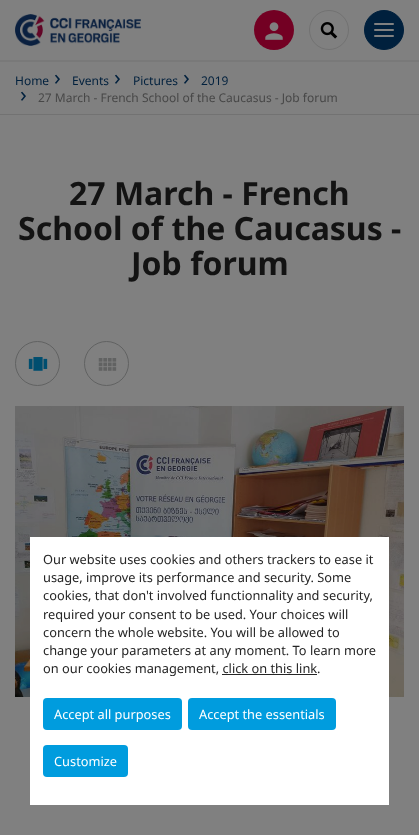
<!DOCTYPE html>
<meta charset="utf-8">
<style>body { margin: 0 } canvas { display: block }</style>
<canvas id="canvas" width="419" height="835"></canvas>
<script type="module">
  const canvas = document.getElementById("canvas");
  const ctx = canvas.getContext("2d");
  ctx.miterLimit = 4;
  ctx.fontKerning = "normal";
  async function loadImage(src) {
    const img = new Image();
    img.src = src;
    await img.decode();
    return img;
  }

  ctx.fillStyle = "#808080";
  ctx.fillRect(0, 0, 419, 835);
  ctx.fillStyle = "#797979";
  ctx.fillRect(0, 60, 419, 2);
  ctx.drawImage(await loadImage("img1.png"), 15, 14, 126, 32);
  ctx.fillStyle = "#730023";
  ctx.beginPath();
  ctx.arc(274, 30, 20, 0, Math.PI * 2);
  ctx.fill();
  ctx.drawImage(await loadImage("img2.png"), 265, 22, 18, 18);
  ctx.beginPath();
  ctx.arc(329, 30, 19.5, 0, Math.PI * 2);
  ctx.strokeStyle = "#727272";
  ctx.stroke();
  ctx.drawImage(await loadImage("img3.png"), 320, 22, 18, 17);
  ctx.fillStyle = "#00203d";
  ctx.beginPath();
  ctx.arc(384, 30, 19.5, 0, Math.PI * 2);
  ctx.fill();
  ctx.strokeStyle = "#00203d";
  ctx.stroke();
  ctx.fillStyle = "#808080";
  ctx.beginPath();
  ctx.roundRect(374, 23, 20, 2, 1);
  ctx.fill();
  ctx.beginPath();
  ctx.roundRect(374, 29, 20, 2, 1);
  ctx.fill();
  ctx.beginPath();
  ctx.roundRect(374, 35, 20, 2, 1);
  ctx.fill();
  ctx.fillStyle = "#727272";
  ctx.fillRect(0, 114, 419, 1);
  ctx.font = "12px Noto Sans";
  ctx.fillStyle = "#00203d";
  ctx.fillText("Home", 15, 85);
  ctx.font = "22px Noto Sans";
  ctx.fillText("›", 54, 85);
  ctx.font = "12px Noto Sans";
  ctx.fillText("Events", 72, 85);
  ctx.font = "22px Noto Sans";
  ctx.fillText("›", 114, 85);
  ctx.font = "12px Noto Sans";
  ctx.fillText("Pictures", 133, 85);
  ctx.font = "22px Noto Sans";
  ctx.fillText("›", 183, 85);
  ctx.font = "12px Noto Sans";
  ctx.fillText("2019", 201, 85);
  ctx.font = "22px Noto Sans";
  ctx.fillText("›", 20, 102);
  ctx.font = "12px Noto Sans";
  ctx.fillStyle = "#474747";
  ctx.fillText("27 March - French School of the Caucasus - Job forum", 38, 102);
  ctx.font = "bold 32px Noto Sans";
  ctx.fillStyle = "#131313";
  ctx.fillText("27 March - French", 69, 205);
  ctx.fillText("School of the Caucasus -", 18, 240);
  ctx.fillText("Job forum", 131, 275);
  ctx.beginPath();
  ctx.arc(37.5, 363.5, 22, 0, Math.PI * 2);
  ctx.strokeStyle = "#616262";
  ctx.stroke();
  ctx.drawImage(await loadImage("img4.png"), 28, 357, 20, 14);
  ctx.beginPath();
  ctx.arc(106.5, 363.5, 22, 0, Math.PI * 2);
  ctx.stroke();
  ctx.drawImage(await loadImage("img5.png"), 98, 358, 19, 13);
  ctx.drawImage(await loadImage("img6.png"), 15, 406, 389, 291);
  ctx.fillStyle = "#ffffff";
  ctx.fillRect(30, 537, 359, 268);
  ctx.font = "12.8px Noto Sans";
  ctx.fillStyle = "#252525";
  ctx.fillText("Our website uses cookies and others trackers to ease it", 43, 564);
  ctx.fillText("usage, improve its performance and security. Some", 43, 582);
  ctx.fillText("cookies, that don't involved functionnality and security,", 43, 600);
  ctx.fillText("required your consent to be used. Your choices will", 43, 619);
  ctx.fillText("concern the whole website. You will be allowed to", 43, 637);
  ctx.fillText("change your parameters at any moment. To learn more", 43, 655);
  ctx.fillText("on our cookies management, click on this link.", 43, 673);
  ctx.fillRect(222, 674, 95, 1);
  ctx.fillStyle = "#009cde";
  ctx.beginPath();
  ctx.roundRect(43, 698, 139, 32, 4);
  ctx.fill();
  ctx.fillStyle = "#ffffff";
  ctx.fillText("Accept all purposes", 54, 719);
  ctx.fillStyle = "#009cde";
  ctx.beginPath();
  ctx.roundRect(188, 698, 148, 32, 4);
  ctx.fill();
  ctx.fillStyle = "#ffffff";
  ctx.fillText("Accept the essentials", 199, 719);
  ctx.fillStyle = "#009cde";
  ctx.beginPath();
  ctx.roundRect(43, 745, 85, 32, 4);
  ctx.fill();
  ctx.fillStyle = "#ffffff";
  ctx.fillText("Customize", 54, 766);
</script>
